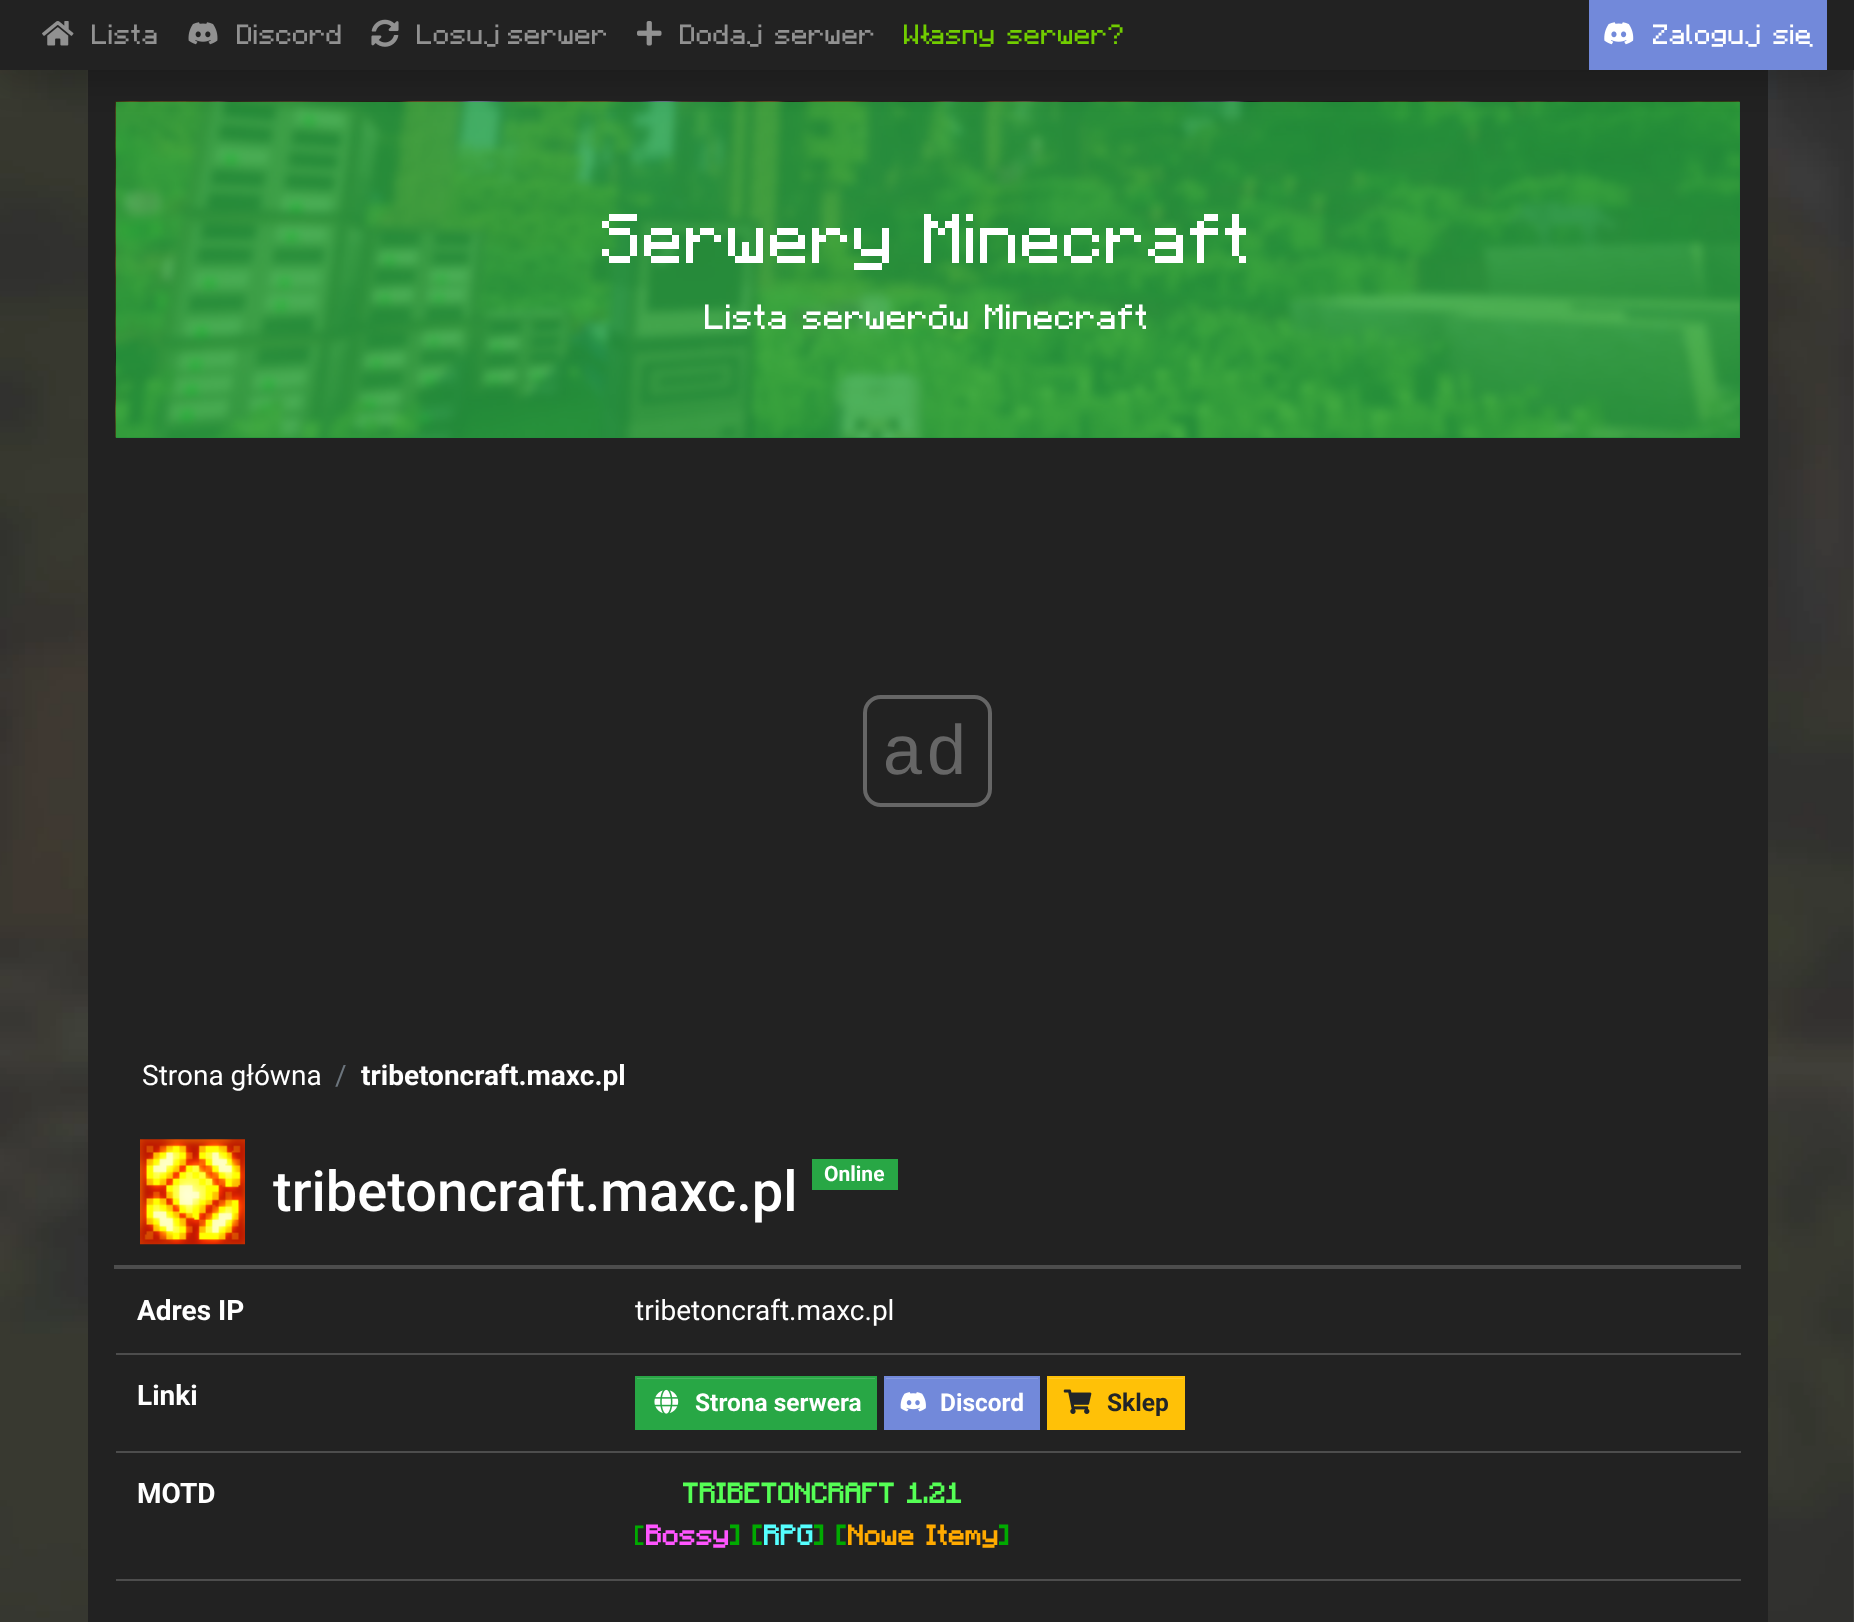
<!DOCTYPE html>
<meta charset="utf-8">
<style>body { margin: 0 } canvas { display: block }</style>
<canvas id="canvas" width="1854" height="1622"></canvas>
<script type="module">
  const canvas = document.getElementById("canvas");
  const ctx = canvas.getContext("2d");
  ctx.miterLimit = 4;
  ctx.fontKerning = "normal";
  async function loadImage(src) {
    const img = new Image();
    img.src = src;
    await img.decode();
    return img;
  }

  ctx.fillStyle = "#ffffff";
  ctx.fillRect(0, 0, 1854, 1622);
  ctx.drawImage(await loadImage("img1.png"), 0, 70, 1854, 1552);
  ctx.fillStyle = "#222222";
  ctx.fillRect(88, 70, 1680, 1552);
  ctx.drawImage(await loadImage("img7.png"), 115, 101, 1625, 337);
  ctx.fillStyle = "rgba(40, 167, 69, 0.8)";
  ctx.fillRect(116, 102, 1624, 336);
  ctx.fillStyle = "rgba(0, 0, 0, 0.15)";
  ctx.filter = "blur(14px)";
  ctx.beginPath();
  ctx.rect(0, 14, 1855, 70);
  ctx.fill();
  ctx.filter = "none";
  ctx.fillStyle = "#222222";
  ctx.fillRect(0, 0, 1854, 70);
  ctx.drawImage(await loadImage("img2.png"), 42, 21, 32, 25);
  ctx.font = "28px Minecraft";
  ctx.fillStyle = "#919191";
  ctx.fillText("Lista", 92, 44);
  ctx.drawImage(await loadImage("img3.png"), 188, 22, 30, 23);
  ctx.fillText("Discord", 237, 44);
  ctx.drawImage(await loadImage("img4.png"), 371, 19, 28, 28);
  ctx.fillText("Losuj", 417, 44);
  ctx.fillText("serwer", 508, 44);
  ctx.drawImage(await loadImage("img5.png"), 637, 21, 25, 25);
  ctx.fillText("Dodaj serwer", 680, 44);
  ctx.fillStyle = "#71cd00";
  ctx.fillText("Własny serwer?", 904, 44);
  ctx.fillStyle = "#7289da";
  ctx.fillRect(1589, 0, 238, 70);
  ctx.drawImage(await loadImage("img6.png"), 1604, 22, 30, 23);
  ctx.fillStyle = "#ffffff";
  ctx.fillText("Zaloguj się", 1653, 44);
  ctx.font = "70px Minecraft";
  ctx.fillText("Serwery Minecraft", 602, 263);
  ctx.font = "35px Minecraft";
  ctx.fillText("Lista serwerów Minecraft", 705, 329);
  ctx.beginPath();
  ctx.roundRect(865, 697, 125, 108, 16);
  ctx.strokeStyle = "#666666";
  ctx.lineWidth = 4;
  ctx.stroke();
  ctx.letterSpacing = "5px";
  ctx.font = "70px Liberation Sans";
  ctx.fillStyle = "#666666";
  ctx.fillText("ad", 883, 774);
  ctx.letterSpacing = "0px";
  ctx.font = "28px Roboto";
  ctx.fillStyle = "#ffffff";
  ctx.fillText("Strona główna", 142, 1085);
  ctx.fillStyle = "#6c757d";
  ctx.fillText("/", 335, 1085);
  ctx.font = "bold 28px Roboto";
  ctx.fillStyle = "#ffffff";
  ctx.fillText("tribetoncraft.maxc.pl", 361, 1085);
  ctx.fillStyle = "#4d4d4d";
  ctx.fillRect(114, 1265, 1627, 4);
  ctx.drawImage(await loadImage("img8.png"), 140, 1139, 105, 106);
  ctx.font = "500 56px Roboto";
  ctx.fillStyle = "#ffffff";
  ctx.fillText("tribetoncraft.maxc.pl", 273, 1211);
  ctx.fillStyle = "#28a745";
  ctx.fillRect(812, 1159, 86, 31);
  ctx.font = "bold 21px Roboto";
  ctx.fillStyle = "#ffffff";
  ctx.fillText("Online", 824, 1181);
  ctx.font = "bold 28px Roboto";
  ctx.fillText("Adres IP", 137, 1320);
  ctx.font = "28px Roboto";
  ctx.fillText("tribetoncraft.maxc.pl", 635, 1320);
  ctx.font = "bold 28px Roboto";
  ctx.fillText("Linki", 137, 1405);
  ctx.fillStyle = "#4d4d4d";
  ctx.fillRect(116, 1353, 1625, 2);
  ctx.fillStyle = "#28a745";
  ctx.fillRect(637, 1379, 238, 49);
  ctx.fillStyle = "#48b461";
  ctx.fillRect(637, 1378, 238, 1);
  ctx.strokeStyle = "#28a745";
  ctx.lineWidth = 2;
  ctx.strokeRect(636, 1377, 240, 52);
  ctx.drawImage(await loadImage("img9.png"), 654, 1389, 25, 25);
  ctx.font = "bold 24.5px Roboto";
  ctx.fillStyle = "#ffffff";
  ctx.fillText("Strona serwera", 695, 1411);
  ctx.fillStyle = "#7289da";
  ctx.fillRect(886, 1379, 152, 49);
  ctx.fillStyle = "#879be0";
  ctx.fillRect(886, 1378, 152, 1);
  ctx.strokeStyle = "#7289da";
  ctx.strokeRect(885, 1377, 154, 52);
  ctx.drawImage(await loadImage("img10.png"), 900, 1392, 26, 20);
  ctx.fillStyle = "#ffffff";
  ctx.fillText("Discord", 940, 1411);
  ctx.fillStyle = "#ffc107";
  ctx.fillRect(1049, 1379, 134, 49);
  ctx.fillStyle = "#ffca2c";
  ctx.fillRect(1048, 1378, 135, 1);
  ctx.strokeStyle = "#ffc107";
  ctx.strokeRect(1048, 1377, 136, 52);
  ctx.drawImage(await loadImage("img11.png"), 1063, 1389, 29, 25);
  ctx.fillStyle = "#212529";
  ctx.fillText("Sklep", 1107, 1411);
  ctx.font = "bold 28px Roboto";
  ctx.fillStyle = "#ffffff";
  ctx.fillText("MOTD", 137, 1503);
  ctx.fillStyle = "#4d4d4d";
  ctx.fillRect(116, 1451, 1625, 2);
  ctx.font = "bold 28px Minecraft";
  ctx.fillStyle = "#55ff55";
  ctx.fillText("TRIBETONCRAFT 1.21", 683, 1503);
  ctx.font = "28px Minecraft";
  ctx.fillStyle = "#00aa00";
  ctx.fillText("[", 635, 1545);
  ctx.font = "bold 28px Minecraft";
  ctx.fillStyle = "#ff55ff";
  ctx.fillText("Bossy", 646, 1545);
  ctx.fillStyle = "#00aa00";
  ctx.fillText("] [", 730, 1545);
  ctx.fillStyle = "#55ffff";
  ctx.fillText("RPG", 764, 1545);
  ctx.fillStyle = "#00aa00";
  ctx.fillText("] [", 814, 1545);
  ctx.fillStyle = "#ffaa00";
  ctx.fillText("Nowe Itemy", 848, 1545);
  ctx.fillStyle = "#00aa00";
  ctx.fillText("]", 999, 1545);
  ctx.fillStyle = "#4d4d4d";
  ctx.fillRect(116, 1579, 1625, 2);
</script>
